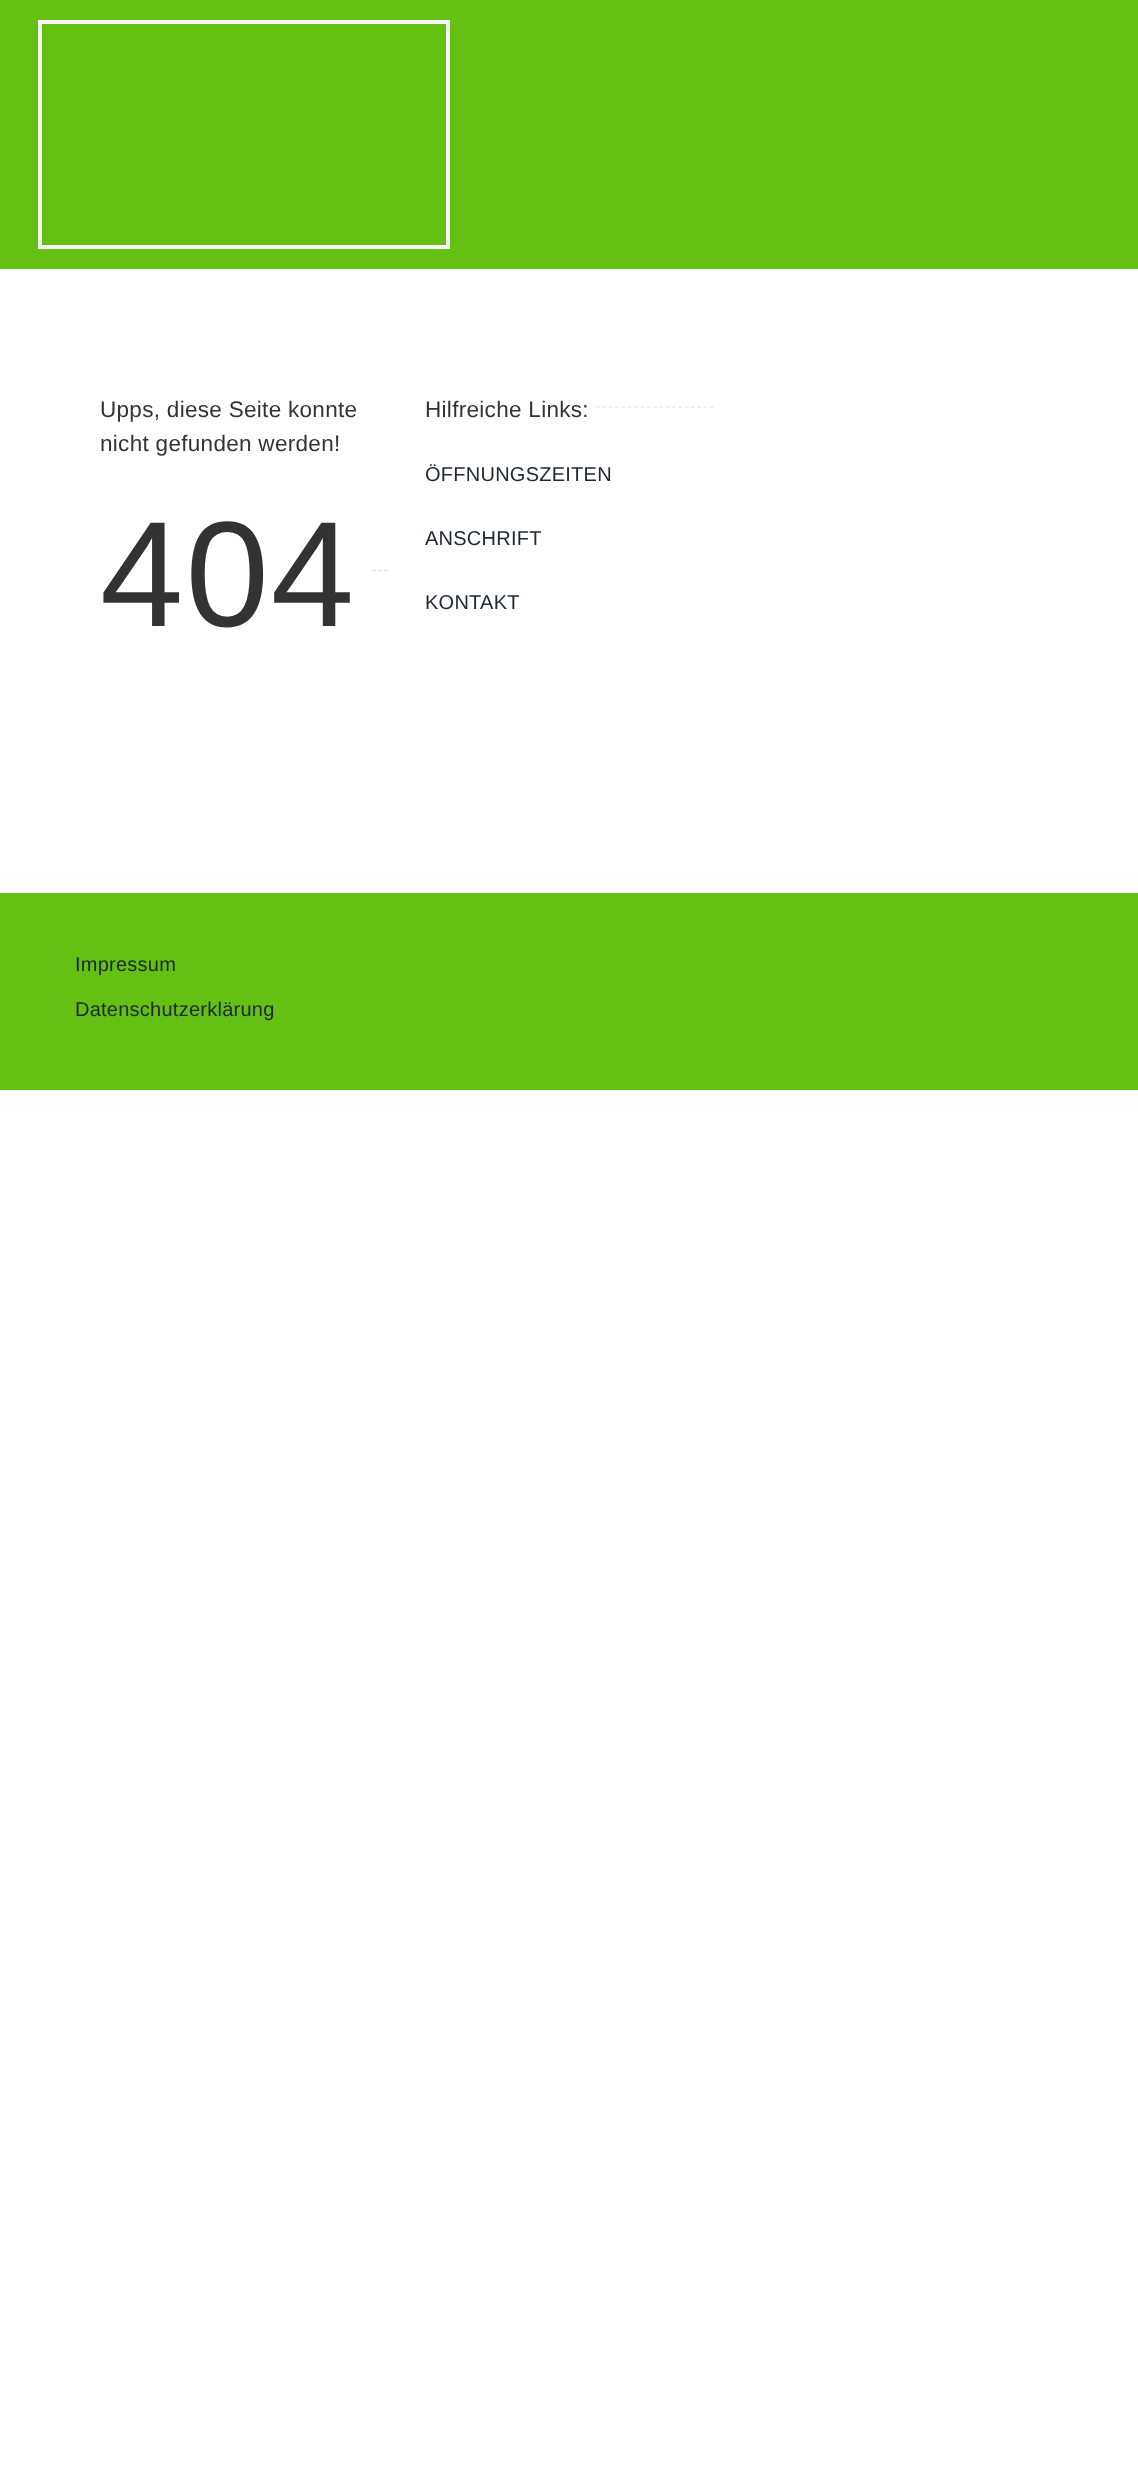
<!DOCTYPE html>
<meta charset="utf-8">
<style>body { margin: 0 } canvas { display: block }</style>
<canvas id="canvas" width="1138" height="2476"></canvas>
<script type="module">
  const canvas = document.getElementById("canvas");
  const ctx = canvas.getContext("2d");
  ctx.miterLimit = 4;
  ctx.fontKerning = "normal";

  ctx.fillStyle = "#ffffff";
  ctx.fillRect(0, 0, 1138, 2476);
  ctx.fillStyle = "#64c013";
  ctx.fillRect(0, 0, 1138, 269);
  ctx.strokeStyle = "#f5f5f5";
  ctx.lineWidth = 4;
  ctx.strokeRect(40, 22, 408, 225);
  ctx.letterSpacing = "0.3px";
  ctx.font = "22.5px Liberation Sans";
  ctx.fillStyle = "#333333";
  ctx.fillText("Upps, diese Seite konnte", 100, 417);
  ctx.fillText("nicht gefunden werden!", 100, 451);
  ctx.letterSpacing = "2px";
  ctx.font = "150px Liberation Sans";
  ctx.fillText("404", 100, 626);
  ctx.beginPath();
  ctx.moveTo(372.5, 570.5);
  ctx.lineTo(376, 570.5);
  ctx.moveTo(378, 570.5);
  ctx.lineTo(382, 570.5);
  ctx.moveTo(384, 570.5);
  ctx.lineTo(387.5, 570.5);
  ctx.strokeStyle = "#e0dede";
  ctx.lineWidth = 1.2;
  ctx.stroke();
  ctx.letterSpacing = "0.3px";
  ctx.font = "22.5px Liberation Sans";
  ctx.fillText("Hilfreiche Links:", 425, 417);
  ctx.beginPath();
  ctx.moveTo(596, 407);
  ctx.lineTo(714, 407);
  ctx.setLineDash([3.75, 2.58]);
  ctx.stroke();
  ctx.letterSpacing = "0.25px";
  ctx.font = "20px Liberation Sans";
  ctx.fillStyle = "#212934";
  ctx.fillText("ÖFFNUNGSZEITEN", 425, 481);
  ctx.fillText("ANSCHRIFT", 425, 545);
  ctx.fillText("KONTAKT", 425, 609);
  ctx.fillStyle = "#64c013";
  ctx.fillRect(0, 893, 1138, 197);
  ctx.fillStyle = "#212934";
  ctx.fillText("Impressum", 75, 971);
  ctx.fillText("Datenschutzerklärung", 75, 1016);
</script>
